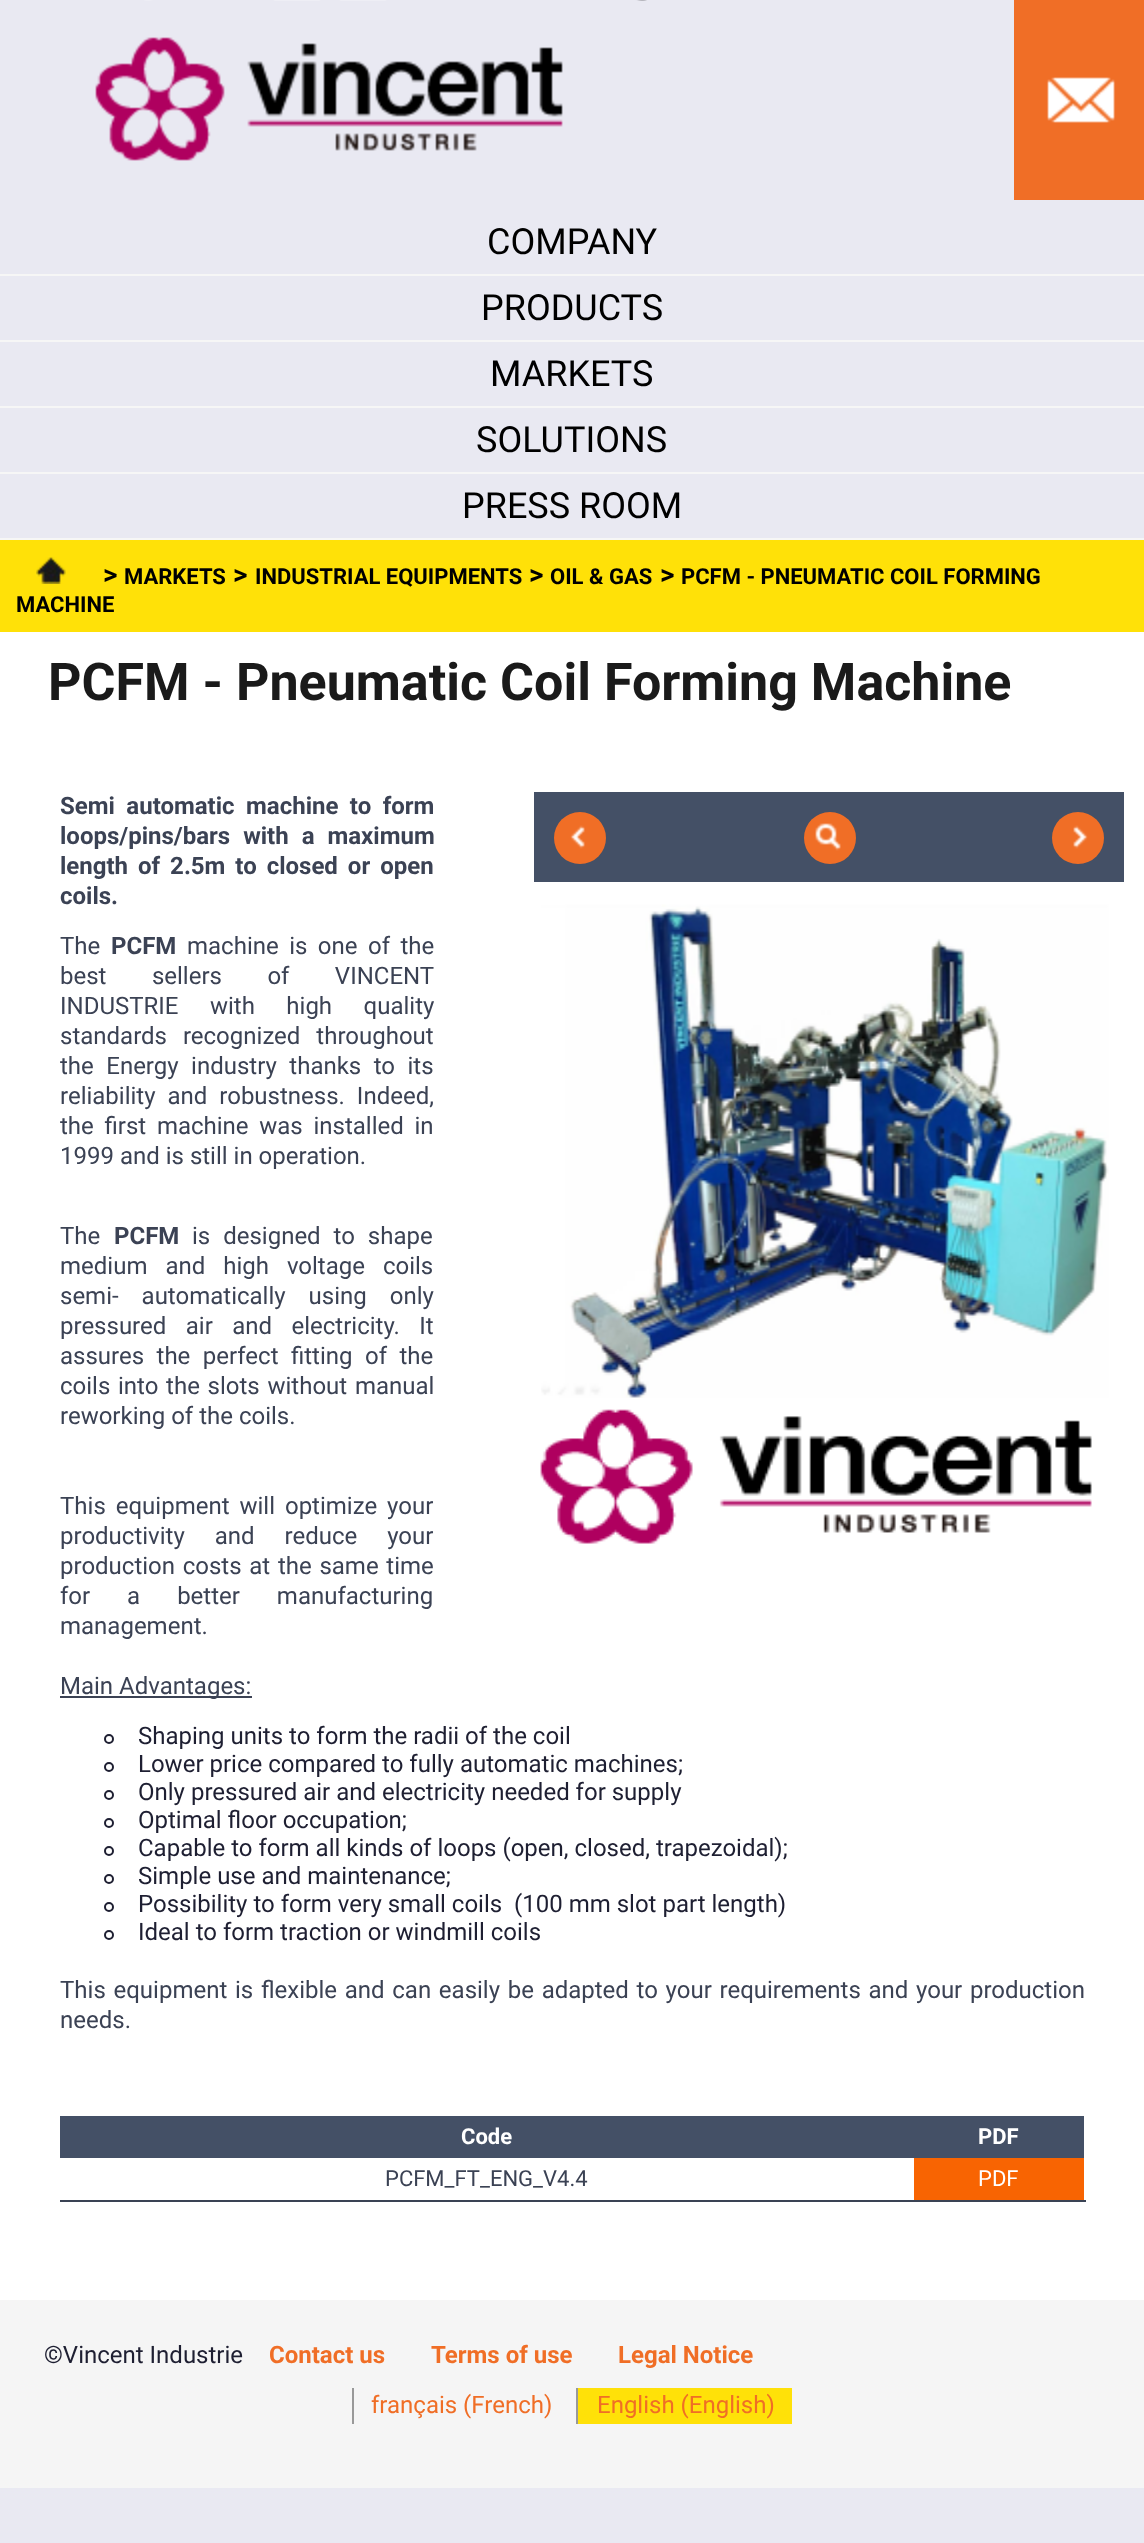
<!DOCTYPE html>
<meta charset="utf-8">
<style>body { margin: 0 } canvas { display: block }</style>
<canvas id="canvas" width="1144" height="2543"></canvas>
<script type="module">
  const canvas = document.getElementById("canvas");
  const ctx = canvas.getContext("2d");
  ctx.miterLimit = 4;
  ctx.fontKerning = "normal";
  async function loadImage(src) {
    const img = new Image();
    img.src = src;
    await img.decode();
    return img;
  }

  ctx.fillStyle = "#e9e9f2";
  ctx.fillRect(0, 0, 1144, 2543);
  ctx.drawImage(await loadImage("img1.png"), 95, 0, 552, 161);
  ctx.fillStyle = "#f06e26";
  ctx.fillRect(1014, 0, 130, 200);
  ctx.drawImage(await loadImage("img2.png"), 1047, 77, 68, 46);
  ctx.fillStyle = "#f6f6f6";
  ctx.fillRect(0, 274, 1144, 2);
  ctx.font = "36px Roboto";
  ctx.fillStyle = "#000000";
  ctx.fillText("COMPANY", 487, 254);
  ctx.fillStyle = "#f6f6f6";
  ctx.fillRect(0, 340, 1144, 2);
  ctx.fillStyle = "#000000";
  ctx.fillText("PRODUCTS", 481, 320);
  ctx.fillStyle = "#f6f6f6";
  ctx.fillRect(0, 406, 1144, 2);
  ctx.fillStyle = "#000000";
  ctx.fillText("MARKETS", 490, 386);
  ctx.fillStyle = "#f6f6f6";
  ctx.fillRect(0, 472, 1144, 2);
  ctx.fillStyle = "#000000";
  ctx.fillText("SOLUTIONS", 476, 452);
  ctx.fillStyle = "#f6f6f6";
  ctx.fillRect(0, 538, 1144, 2);
  ctx.fillStyle = "#000000";
  ctx.fillText("PRESS ROOM", 462, 518);
  ctx.fillStyle = "#ffe108";
  ctx.fillRect(0, 540, 1144, 92);
  ctx.drawImage(await loadImage("img3.png"), 36, 556, 30, 28);
  ctx.font = "bold 28px Roboto";
  ctx.fillStyle = "#000000";
  ctx.fillText(">", 103, 584);
  ctx.font = "bold 22px Roboto";
  ctx.fillText("MARKETS", 124, 584);
  ctx.font = "bold 28px Roboto";
  ctx.fillText(">", 233, 584);
  ctx.font = "bold 22px Roboto";
  ctx.fillText("INDUSTRIAL EQUIPMENTS", 255, 584);
  ctx.font = "bold 28px Roboto";
  ctx.fillText(">", 529, 584);
  ctx.font = "bold 22px Roboto";
  ctx.fillText("OIL & GAS", 550, 584);
  ctx.font = "bold 28px Roboto";
  ctx.fillText(">", 660, 584);
  ctx.font = "bold 22px Roboto";
  ctx.fillText("PCFM - PNEUMATIC COIL FORMING", 681, 584);
  ctx.fillText("MACHINE", 16, 612);
  ctx.fillStyle = "#ffffff";
  ctx.fillRect(0, 632, 1144, 1668);
  ctx.font = "bold 52px Roboto";
  ctx.fillStyle = "#1a1a1a";
  ctx.fillText("PCFM - Pneumatic Coil Forming Machine", 48, 700);
  ctx.wordSpacing = "5.5px";
  ctx.font = "bold 24px Roboto";
  ctx.fillStyle = "#3b4254";
  ctx.fillText("Semi automatic machine to form", 60, 814);
  ctx.wordSpacing = "7px";
  ctx.fillText("loops/pins/bars with a maximum", 60, 844);
  ctx.wordSpacing = "4px";
  ctx.fillText("length of 2.5m to closed or open", 60, 874);
  ctx.wordSpacing = "0px";
  ctx.fillText("coils.", 60, 904);
  ctx.fillStyle = "#445066";
  ctx.fillRect(534, 792, 590, 90);
  ctx.fillStyle = "#f06e26";
  ctx.beginPath();
  ctx.arc(580, 838, 26, 0, Math.PI * 2);
  ctx.fill();
  ctx.drawImage(await loadImage("img4.png"), 570, 825, 15, 24);
  ctx.beginPath();
  ctx.arc(830, 838, 26, 0, Math.PI * 2);
  ctx.fill();
  ctx.drawImage(await loadImage("img5.png"), 815, 823, 26, 28);
  ctx.beginPath();
  ctx.arc(1078, 838, 26, 0, Math.PI * 2);
  ctx.fill();
  ctx.drawImage(await loadImage("img6.png"), 1073, 825, 15, 24);
  ctx.drawImage(await loadImage("img7.png"), 541, 904, 568, 494);
  ctx.drawImage(await loadImage("img8.png"), 540, 1409, 552, 135);
  ctx.font = "24px Roboto";
  ctx.fillStyle = "#3b4254";
  ctx.fillText("The", 60, 954);
  ctx.font = "bold 24px Roboto";
  ctx.fillText("PCFM", 111, 954);
  ctx.wordSpacing = "4.5px";
  ctx.font = "24px Roboto";
  ctx.fillText("machine is one of the", 187, 954);
  ctx.wordSpacing = "39.5px";
  ctx.fillText("best sellers of VINCENT", 60, 984);
  ctx.wordSpacing = "25.5px";
  ctx.fillText("INDUSTRIE with high quality", 60, 1014);
  ctx.wordSpacing = "10px";
  ctx.fillText("standards recognized throughout", 60, 1044);
  ctx.wordSpacing = "6.5px";
  ctx.fillText("the Energy industry thanks to its", 60, 1074);
  ctx.wordSpacing = "6px";
  ctx.fillText("reliability and robustness. Indeed,", 60, 1104);
  ctx.wordSpacing = "4.75px";
  ctx.fillText("the first machine was installed in", 60, 1134);
  ctx.wordSpacing = "0px";
  ctx.fillText("1999 and is still in operation.", 60, 1164);
  ctx.fillText("The", 60, 1244);
  ctx.font = "bold 24px Roboto";
  ctx.fillText("PCFM", 114, 1244);
  ctx.wordSpacing = "7px";
  ctx.font = "24px Roboto";
  ctx.fillText("is designed to shape", 192, 1244);
  ctx.wordSpacing = "12px";
  ctx.fillText("medium and high voltage coils", 60, 1274);
  ctx.wordSpacing = "17px";
  ctx.fillText("semi- automatically using only", 60, 1304);
  ctx.wordSpacing = "13.5px";
  ctx.fillText("pressured air and electricity. It", 60, 1334);
  ctx.wordSpacing = "6.5px";
  ctx.fillText("assures the perfect fitting of the", 60, 1364);
  ctx.wordSpacing = "1.75px";
  ctx.fillText("coils into the slots without manual", 60, 1394);
  ctx.wordSpacing = "0px";
  ctx.fillText("reworking of the coils.", 60, 1424);
  ctx.wordSpacing = "4px";
  ctx.fillText("This equipment will optimize your", 60, 1514);
  ctx.wordSpacing = "24px";
  ctx.fillText("productivity and reduce your", 60, 1544);
  ctx.wordSpacing = "1.75px";
  ctx.fillText("production costs at the same time", 60, 1574);
  ctx.wordSpacing = "31px";
  ctx.fillText("for a better manufacturing", 60, 1604);
  ctx.wordSpacing = "0px";
  ctx.fillText("management.", 60, 1634);
  ctx.fillRect(60, 1696, 192, 2);
  ctx.fillText("Main Advantages:", 60, 1694);
  ctx.beginPath();
  ctx.arc(109, 1739, 4, 0, Math.PI * 2);
  ctx.strokeStyle = "#1e1f32";
  ctx.lineWidth = 2;
  ctx.stroke();
  ctx.fillStyle = "#1e1f32";
  ctx.fillText("Shaping units to form the radii of the coil", 138, 1744);
  ctx.beginPath();
  ctx.arc(109, 1767, 4, 0, Math.PI * 2);
  ctx.stroke();
  ctx.fillText("Lower price compared to fully automatic machines;", 138, 1772);
  ctx.beginPath();
  ctx.arc(109, 1795, 4, 0, Math.PI * 2);
  ctx.stroke();
  ctx.fillText("Only pressured air and electricity needed for supply", 138, 1800);
  ctx.beginPath();
  ctx.arc(109, 1823, 4, 0, Math.PI * 2);
  ctx.stroke();
  ctx.fillText("Optimal floor occupation;", 138, 1828);
  ctx.beginPath();
  ctx.arc(109, 1851, 4, 0, Math.PI * 2);
  ctx.stroke();
  ctx.fillText("Capable to form all kinds of loops (open, closed, trapezoidal);", 138, 1856);
  ctx.beginPath();
  ctx.arc(109, 1879, 4, 0, Math.PI * 2);
  ctx.stroke();
  ctx.fillText("Simple use and maintenance;", 138, 1884);
  ctx.beginPath();
  ctx.arc(109, 1907, 4, 0, Math.PI * 2);
  ctx.stroke();
  ctx.fillText("Possibility to form very small coils  (100 mm slot part length)", 138, 1912);
  ctx.beginPath();
  ctx.arc(109, 1935, 4, 0, Math.PI * 2);
  ctx.stroke();
  ctx.fillText("Ideal to form traction or windmill coils", 138, 1940);
  ctx.wordSpacing = "1.75px";
  ctx.fillStyle = "#3b4254";
  ctx.fillText("This equipment is flexible and can easily be adapted to your requirements and your production", 60, 1998);
  ctx.wordSpacing = "0px";
  ctx.fillText("needs.", 60, 2028);
  ctx.fillStyle = "#445066";
  ctx.fillRect(60, 2116, 1024, 42);
  ctx.font = "bold 22px Roboto";
  ctx.fillStyle = "#ffffff";
  ctx.fillText("Code", 461, 2144);
  ctx.fillText("PDF", 978, 2144);
  ctx.font = "22px Roboto";
  ctx.fillStyle = "#3b4254";
  ctx.fillText("PCFM_FT_ENG_V4.4", 385, 2186);
  ctx.fillStyle = "#f86402";
  ctx.fillRect(914, 2158, 170, 42);
  ctx.fillStyle = "#3a4354";
  ctx.fillRect(60, 2200, 1026, 2);
  ctx.fillStyle = "#ffffff";
  ctx.fillText("PDF", 978, 2186);
  ctx.fillStyle = "#f5f5f5";
  ctx.fillRect(0, 2300, 1144, 188);
  ctx.font = "24px Roboto";
  ctx.fillStyle = "#1e1f32";
  ctx.fillText("©Vincent Industrie", 44, 2363);
  ctx.font = "bold 24px Roboto";
  ctx.fillStyle = "#f06e26";
  ctx.fillText("Contact us", 269, 2363);
  ctx.fillText("Terms of use", 431, 2363);
  ctx.fillText("Legal Notice", 618, 2363);
  ctx.fillStyle = "#999999";
  ctx.fillRect(352, 2388, 2, 36);
  ctx.font = "24px Roboto";
  ctx.fillStyle = "#f06e26";
  ctx.fillText("français (French)", 371, 2413);
  ctx.fillStyle = "#ffe108";
  ctx.fillRect(578, 2388, 214, 36);
  ctx.fillStyle = "#999999";
  ctx.fillRect(576, 2388, 2, 36);
  ctx.fillStyle = "#f06e26";
  ctx.fillText("English (English)", 597, 2413);
</script>
